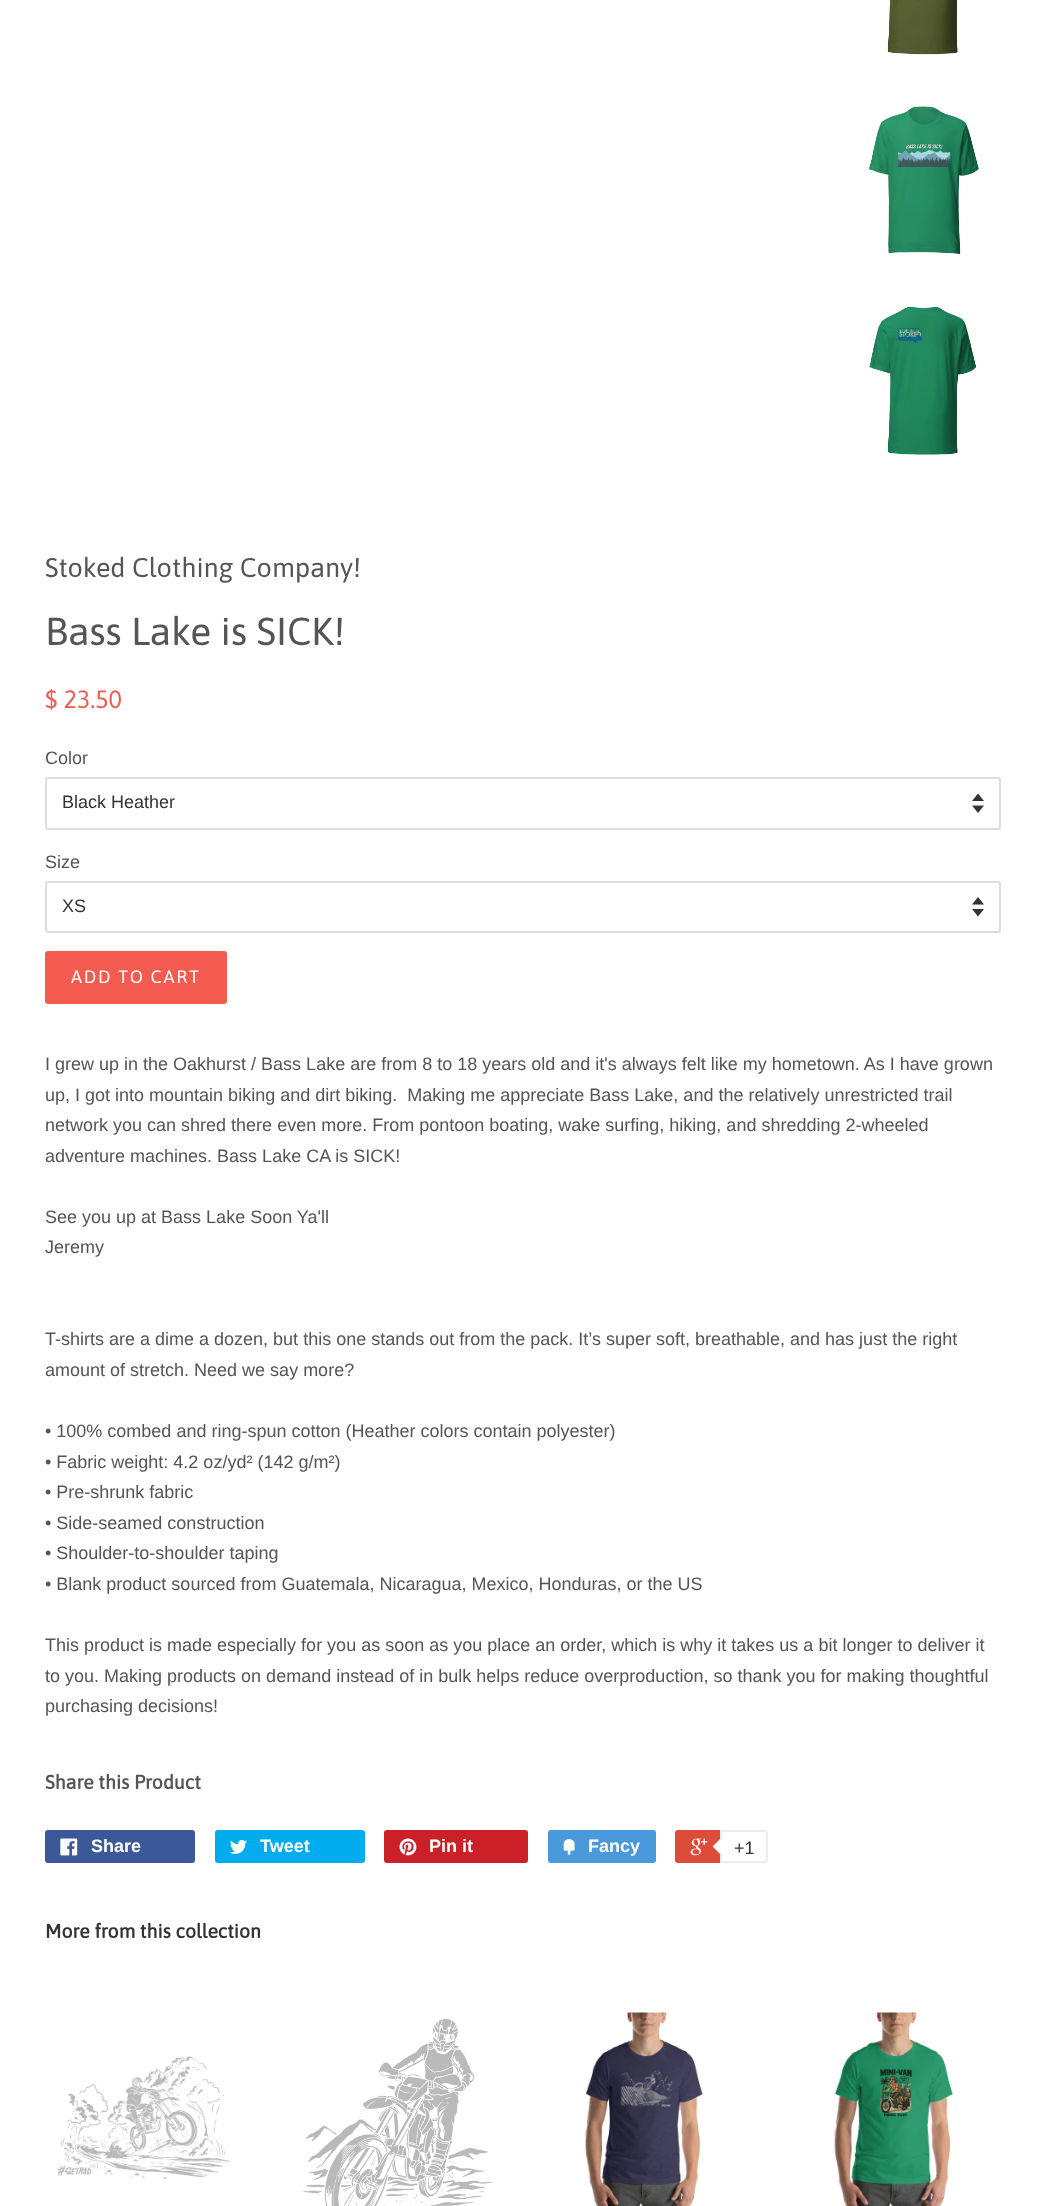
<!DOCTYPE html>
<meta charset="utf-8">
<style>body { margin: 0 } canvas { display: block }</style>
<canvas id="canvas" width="1045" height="2206"></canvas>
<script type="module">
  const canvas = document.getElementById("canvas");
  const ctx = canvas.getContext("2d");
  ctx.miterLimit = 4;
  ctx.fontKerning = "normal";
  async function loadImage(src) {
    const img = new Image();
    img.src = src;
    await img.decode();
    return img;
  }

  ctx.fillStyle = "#ffffff";
  ctx.fillRect(0, 0, 1045, 2206);
  ctx.drawImage(await loadImage("img1.png"), 887, 0, 71, 55);
  ctx.drawImage(await loadImage("img2.png"), 869, 106, 110, 149);
  ctx.drawImage(await loadImage("img3.png"), 869, 306, 108, 149);
  ctx.font = "27px Asap";
  ctx.fillStyle = "#555555";
  ctx.fillText("Stoked Clothing Company!", 45, 577);
  ctx.font = "39px Asap";
  ctx.fillText("Bass Lake is SICK!", 45, 645);
  ctx.font = "25px Asap";
  ctx.fillStyle = "#f45b4f";
  ctx.fillText("$ 23.50", 45, 708);
  ctx.font = "18px Liberation Sans";
  ctx.fillStyle = "#555555";
  ctx.fillText("Color", 45, 764);
  ctx.drawImage(await loadImage("img4.png"), 972, 794, 12, 19);
  ctx.beginPath();
  ctx.roundRect(46, 778, 954, 51, 2);
  ctx.strokeStyle = "#dddddd";
  ctx.lineWidth = 2;
  ctx.stroke();
  ctx.fillStyle = "#333333";
  ctx.fillText("Black Heather", 62, 808);
  ctx.fillStyle = "#555555";
  ctx.fillText("Size", 45, 868);
  ctx.drawImage(await loadImage("img5.png"), 972, 897, 12, 20);
  ctx.beginPath();
  ctx.roundRect(46, 882, 954, 50, 2);
  ctx.stroke();
  ctx.fillStyle = "#333333";
  ctx.fillText("XS", 62, 912);
  ctx.fillStyle = "#f45b4f";
  ctx.beginPath();
  ctx.roundRect(45, 951, 182, 53, 3);
  ctx.fill();
  ctx.letterSpacing = "1.75px";
  ctx.font = "18px Asap";
  ctx.fillStyle = "#ffffff";
  ctx.fillText("ADD TO CART", 71, 983);
  ctx.letterSpacing = "0px";
  ctx.font = "18px Liberation Sans";
  ctx.fillStyle = "#555555";
  ctx.fillText("I grew up in the Oakhurst / Bass Lake are from 8 to 18 years old and it's always felt like my hometown. As I have grown", 45, 1070);
  ctx.fillText("up, I got into mountain biking and dirt biking.  Making me appreciate Bass Lake, and the relatively unrestricted trail", 45, 1101);
  ctx.fillText("network you can shred there even more. From pontoon boating, wake surfing, hiking, and shredding 2-wheeled", 45, 1131);
  ctx.fillText("adventure machines. Bass Lake CA is SICK!", 45, 1162);
  ctx.fillText("See you up at Bass Lake Soon Ya'll", 45, 1223);
  ctx.fillText("Jeremy", 45, 1253);
  ctx.fillText("T-shirts are a dime a dozen, but this one stands out from the pack. It’s super soft, breathable, and has just the right", 45, 1345);
  ctx.fillText("amount of stretch. Need we say more?", 45, 1376);
  ctx.fillText("• 100% combed and ring-spun cotton (Heather colors contain polyester)", 45, 1437);
  ctx.fillText("• Fabric weight: 4.2 oz/yd² (142 g/m²)", 45, 1468);
  ctx.fillText("• Pre-shrunk fabric", 45, 1498);
  ctx.fillText("• Side-seamed construction", 45, 1529);
  ctx.fillText("• Shoulder-to-shoulder taping", 45, 1559);
  ctx.fillText("• Blank product sourced from Guatemala, Nicaragua, Mexico, Honduras, or the US", 45, 1590);
  ctx.fillText("This product is made especially for you as soon as you place an order, which is why it takes us a bit longer to deliver it", 45, 1651);
  ctx.fillText("to you. Making products on demand instead of in bulk helps reduce overproduction, so thank you for making thoughtful", 45, 1682);
  ctx.fillText("purchasing decisions!", 45, 1712);
  ctx.font = "bold 19.5px Asap";
  ctx.fillText("Share this Product", 45, 1789);
  ctx.fillStyle = "#3b5998";
  ctx.beginPath();
  ctx.roundRect(45, 1830, 150, 33, 3);
  ctx.fill();
  ctx.drawImage(await loadImage("img6.png"), 60, 1838, 18, 18);
  ctx.font = "bold 18px Liberation Sans";
  ctx.fillStyle = "#ffffff";
  ctx.fillText("Share", 91, 1852);
  ctx.fillStyle = "#00aced";
  ctx.beginPath();
  ctx.roundRect(215, 1830, 150, 33, 3);
  ctx.fill();
  ctx.drawImage(await loadImage("img7.png"), 230, 1839, 17, 15);
  ctx.fillStyle = "#ffffff";
  ctx.fillText("Tweet", 260, 1852);
  ctx.fillStyle = "#cb2027";
  ctx.beginPath();
  ctx.roundRect(384, 1830, 144, 33, 3);
  ctx.fill();
  ctx.drawImage(await loadImage("img8.png"), 399, 1838, 18, 18);
  ctx.fillStyle = "#ffffff";
  ctx.fillText("Pin it", 429, 1852);
  ctx.fillStyle = "#4999dc";
  ctx.beginPath();
  ctx.roundRect(548, 1830, 108, 33, 3);
  ctx.fill();
  ctx.drawImage(await loadImage("img9.png"), 563, 1839, 12, 16);
  ctx.fillStyle = "#ffffff";
  ctx.fillText("Fancy", 588, 1852);
  ctx.fillStyle = "#dd4b39";
  ctx.beginPath();
  ctx.roundRect(675, 1830, 90, 33, 3);
  ctx.fill();
  ctx.drawImage(await loadImage("img10.png"), 690, 1838, 18, 18);
  ctx.fillStyle = "#ffffff";
  ctx.beginPath();
  ctx.roundRect(721, 1831, 46, 31, [0, 2, 2, 0]);
  ctx.fill();
  ctx.strokeStyle = "#ececec";
  ctx.stroke();
  ctx.fillStyle = "#ececec";
  ctx.beginPath();
  ctx.moveTo(721.5, 1837.5);
  ctx.lineTo(721.5, 1855.5);
  ctx.lineTo(712.5, 1846.5);
  ctx.closePath();
  ctx.fill();
  ctx.fillStyle = "#ffffff";
  ctx.beginPath();
  ctx.moveTo(723, 1837.5);
  ctx.lineTo(723, 1855.5);
  ctx.lineTo(714, 1846.5);
  ctx.closePath();
  ctx.fill();
  ctx.font = "18px Liberation Sans";
  ctx.fillStyle = "#333333";
  ctx.fillText("+1", 734, 1854);
  ctx.font = "bold 19.5px Asap";
  ctx.fillText("More from this collection", 45, 1938);
  ctx.drawImage(await loadImage("img11.png"), 57, 2056, 173, 123);
  ctx.drawImage(await loadImage("img12.png"), 303, 2018, 190, 188);
  ctx.drawImage(await loadImage("img13.png"), 584, 2012, 119, 194);
  ctx.drawImage(await loadImage("img14.png"), 834, 2012, 119, 194);
</script>
